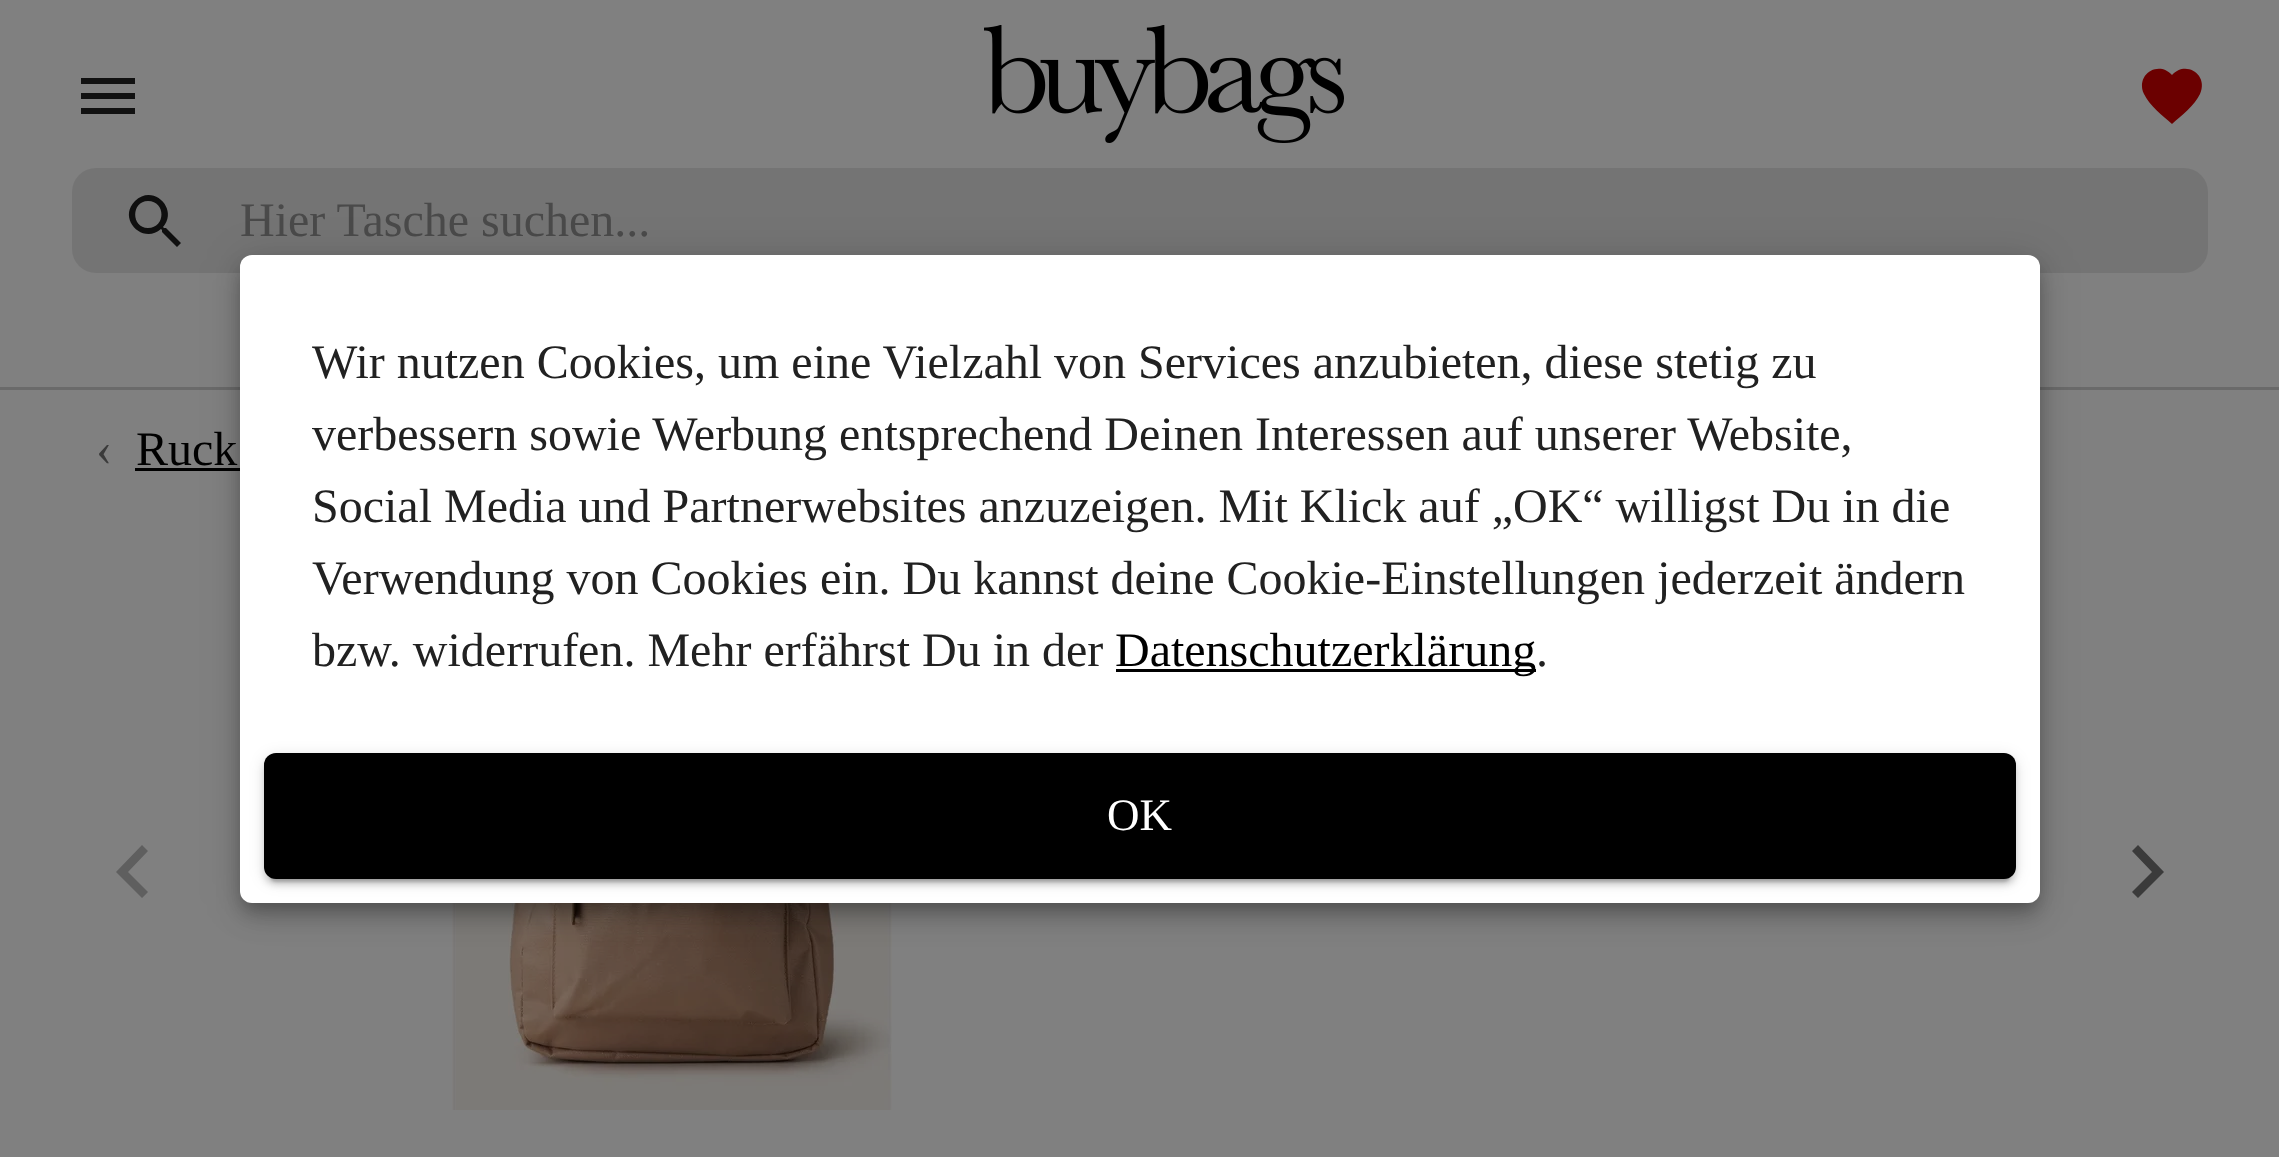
<!DOCTYPE html>
<meta charset="utf-8">
<style>body { margin: 0 } canvas { display: block }</style>
<canvas id="canvas" width="2279" height="1157"></canvas>
<script type="module">
  const canvas = document.getElementById("canvas");
  const ctx = canvas.getContext("2d");
  ctx.miterLimit = 4;
  ctx.fontKerning = "normal";
  async function loadImage(src) {
    const img = new Image();
    img.src = src;
    await img.decode();
    return img;
  }

  ctx.fillStyle = "#808080";
  ctx.fillRect(0, 0, 2279, 1157);
  ctx.fillStyle = "#6a6a6a";
  ctx.fillRect(0, 387, 2279, 3);
  ctx.fillStyle = "#111111";
  ctx.beginPath();
  ctx.moveTo(81, 114);
  ctx.lineTo(135, 114);
  ctx.lineTo(135, 108);
  ctx.lineTo(81, 108);
  ctx.closePath();
  ctx.moveTo(81, 99);
  ctx.lineTo(135, 99);
  ctx.lineTo(135, 93);
  ctx.lineTo(81, 93);
  ctx.closePath();
  ctx.moveTo(81, 78);
  ctx.lineTo(81, 84);
  ctx.lineTo(135, 84);
  ctx.lineTo(135, 78);
  ctx.closePath();
  ctx.fill();
  ctx.drawImage(await loadImage("img1.png"), 984, 25, 360, 118);
  ctx.fillStyle = "#6b0000";
  ctx.beginPath();
  ctx.moveTo(2172, 124);
  ctx.bezierCurveTo(2163, 116, 2149, 105, 2144, 94);
  ctx.bezierCurveTo(2135, 74, 2159, 60, 2172, 75);
  ctx.bezierCurveTo(2185, 60, 2209, 74, 2200, 94);
  ctx.bezierCurveTo(2195, 105, 2181, 116, 2172, 124);
  ctx.closePath();
  ctx.fill();
  ctx.fillStyle = "#111111";
  ctx.beginPath();
  ctx.moveTo(166, 228);
  ctx.lineTo(164, 228);
  ctx.lineTo(163, 227);
  ctx.bezierCurveTo(179, 209, 153, 183, 135, 201);
  ctx.bezierCurveTo(117, 219, 143, 245, 161, 229);
  ctx.lineTo(162, 230);
  ctx.lineTo(162, 232);
  ctx.lineTo(177, 247);
  ctx.lineTo(181, 243);
  ctx.closePath();
  ctx.moveTo(148, 228);
  ctx.bezierCurveTo(131, 228, 131, 201, 148, 201);
  ctx.bezierCurveTo(166, 201, 166, 228, 148, 228);
  ctx.closePath();
  ctx.fill();
  ctx.fillStyle = "rgba(0, 0, 0, 0.09)";
  ctx.beginPath();
  ctx.roundRect(72, 168, 2136, 105, 24);
  ctx.fill();
  ctx.font = "48px Liberation Serif";
  ctx.fillStyle = "#4a4a4a";
  ctx.fillText("Hier Tasche suchen...", 240, 236);
  ctx.fillStyle = "#3b3b3b";
  ctx.fillText("‹", 96, 465);
  ctx.fillStyle = "#000000";
  ctx.fillText("Ruck", 136, 465);
  ctx.fillRect(135, 468, 105, 3);
  ctx.fillStyle = "#5f5f5f";
  ctx.beginPath();
  ctx.moveTo(148, 851);
  ctx.lineTo(142, 845);
  ctx.lineTo(116, 872);
  ctx.lineTo(142, 898);
  ctx.lineTo(148, 892);
  ctx.lineTo(128, 872);
  ctx.closePath();
  ctx.fill();
  ctx.fillStyle = "#3b3b3b";
  ctx.beginPath();
  ctx.moveTo(2138, 845);
  ctx.lineTo(2132, 851);
  ctx.lineTo(2152, 872);
  ctx.lineTo(2132, 892);
  ctx.lineTo(2138, 898);
  ctx.lineTo(2164, 872);
  ctx.closePath();
  ctx.fill();
  ctx.drawImage(await loadImage("img2.png"), 452, 903, 440, 207);
  ctx.fillStyle = "rgba(0, 0, 0, 0.12)";
  ctx.filter = "blur(21px)";
  ctx.beginPath();
  ctx.roundRect(240, 258, 1800, 648, 12);
  ctx.fill();
  ctx.filter = "none";
  ctx.fillStyle = "rgba(0, 0, 0, 0.14)";
  ctx.filter = "blur(12px)";
  ctx.beginPath();
  ctx.roundRect(240, 270, 1800, 648, 12);
  ctx.fill();
  ctx.filter = "none";
  ctx.fillStyle = "rgba(0, 0, 0, 0.2)";
  ctx.filter = "blur(7.5px)";
  ctx.beginPath();
  ctx.roundRect(243, 267, 1794, 642, 9);
  ctx.fill();
  ctx.filter = "none";
  ctx.fillStyle = "#ffffff";
  ctx.beginPath();
  ctx.roundRect(240, 255, 1800, 648, 12);
  ctx.fill();
  ctx.fillStyle = "#212121";
  ctx.fillText("Wir nutzen Cookies, um eine Vielzahl von Services anzubieten, diese stetig zu", 312, 378);
  ctx.fillText("verbessern sowie Werbung entsprechend Deinen Interessen auf unserer Website,", 312, 450);
  ctx.fillText("Social Media und Partnerwebsites anzuzeigen. Mit Klick auf „OK“ willigst Du in die", 312, 522);
  ctx.fillText("Verwendung von Cookies ein. Du kannst deine Cookie-Einstellungen jederzeit ändern", 312, 594);
  ctx.fillText("bzw. widerrufen. Mehr erfährst Du in der", 312, 666);
  ctx.fillStyle = "#000000";
  ctx.fillRect(1116, 669, 420, 3);
  ctx.fillText("Datenschutzerklärung", 1115, 666);
  ctx.fillStyle = "#212121";
  ctx.fillText(".", 1536, 666);
  ctx.fillStyle = "rgba(0, 0, 0, 0.12)";
  ctx.filter = "blur(7.5px)";
  ctx.beginPath();
  ctx.roundRect(264, 756, 1752, 126, 12);
  ctx.fill();
  ctx.filter = "none";
  ctx.fillStyle = "rgba(0, 0, 0, 0.14)";
  ctx.filter = "blur(3px)";
  ctx.beginPath();
  ctx.roundRect(264, 759, 1752, 126, 12);
  ctx.fill();
  ctx.filter = "none";
  ctx.fillStyle = "rgba(0, 0, 0, 0.2)";
  ctx.filter = "blur(1.5px)";
  ctx.beginPath();
  ctx.roundRect(270, 768, 1740, 114, 6);
  ctx.fill();
  ctx.filter = "none";
  ctx.fillStyle = "#000000";
  ctx.beginPath();
  ctx.roundRect(264, 753, 1752, 126, 12);
  ctx.fill();
  ctx.font = "45px Liberation Serif";
  ctx.fillStyle = "#ffffff";
  ctx.fillText("OK", 1107, 830);
</script>
